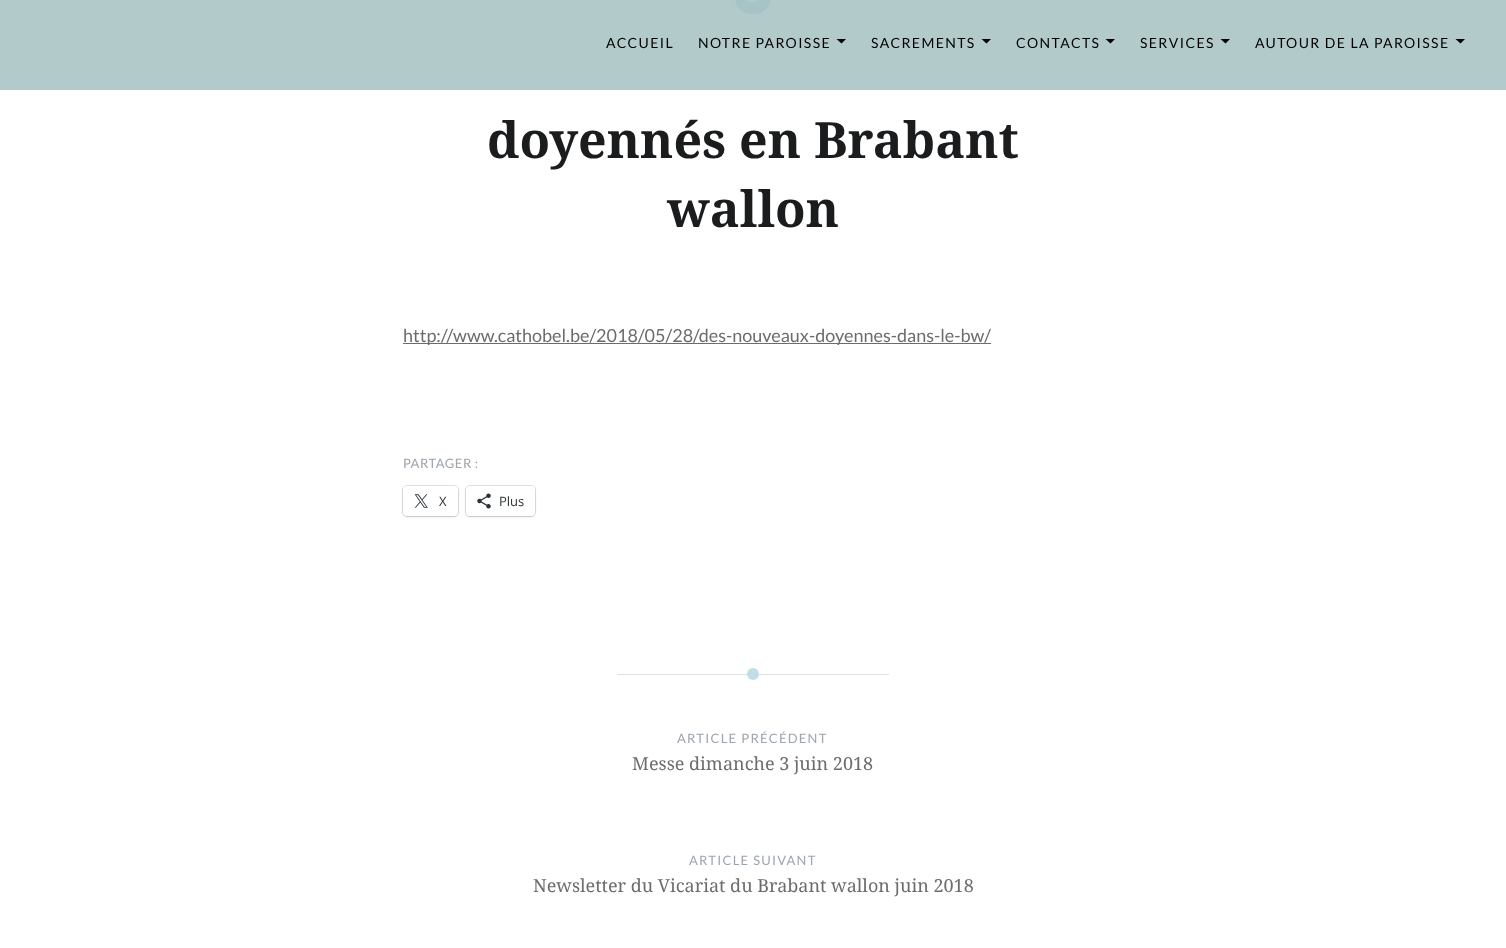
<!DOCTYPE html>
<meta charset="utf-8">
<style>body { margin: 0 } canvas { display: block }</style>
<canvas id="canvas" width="1506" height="948"></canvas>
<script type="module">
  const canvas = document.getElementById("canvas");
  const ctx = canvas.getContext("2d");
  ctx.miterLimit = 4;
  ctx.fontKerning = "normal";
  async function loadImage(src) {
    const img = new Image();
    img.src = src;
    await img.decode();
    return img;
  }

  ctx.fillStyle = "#ffffff";
  ctx.fillRect(0, 0, 1506, 948);
  ctx.fillStyle = "#bfdee7";
  ctx.beginPath();
  ctx.roundRect(735, -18, 36, 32, 18);
  ctx.fill();
  ctx.drawImage(await loadImage("img1.png"), 747, 0, 10, 2);
  ctx.fillStyle = "rgba(160, 189, 190, 0.8)";
  ctx.fillRect(0, 0, 1506, 90);
  ctx.letterSpacing = "1.4px";
  ctx.font = "14px Lato";
  ctx.fillStyle = "#000000";
  ctx.fillText("ACCUEIL", 606, 48);
  ctx.fillText("NOTRE PAROISSE", 698, 48);
  ctx.beginPath();
  ctx.moveTo(836.5, 39);
  ctx.lineTo(846, 39);
  ctx.lineTo(841.5, 43.5);
  ctx.closePath();
  ctx.fill();
  ctx.fillText("SACREMENTS", 871, 48);
  ctx.beginPath();
  ctx.moveTo(981.5, 39);
  ctx.lineTo(991, 39);
  ctx.lineTo(986.5, 43.5);
  ctx.closePath();
  ctx.fill();
  ctx.fillText("CONTACTS", 1016, 48);
  ctx.beginPath();
  ctx.moveTo(1105.5, 39);
  ctx.lineTo(1115, 39);
  ctx.lineTo(1110.5, 43.5);
  ctx.closePath();
  ctx.fill();
  ctx.fillText("SERVICES", 1140, 48);
  ctx.beginPath();
  ctx.moveTo(1220.5, 39);
  ctx.lineTo(1230, 39);
  ctx.lineTo(1225.5, 43.5);
  ctx.closePath();
  ctx.fill();
  ctx.fillText("AUTOUR DE LA PAROISSE", 1255, 48);
  ctx.beginPath();
  ctx.moveTo(1455.5, 39);
  ctx.lineTo(1465, 39);
  ctx.lineTo(1460.5, 43.5);
  ctx.closePath();
  ctx.fill();
  ctx.letterSpacing = "0px";
  ctx.font = "bold 50px Noto Serif";
  ctx.fillStyle = "#1a1c1e";
  ctx.fillText("doyennés en Brabant", 487, 158);
  ctx.fillText("wallon", 667, 227);
  ctx.fillStyle = "#6a6c6e";
  ctx.fillRect(403, 343, 588, 1);
  ctx.font = "18px Lato";
  ctx.fillText("http://www.cathobel.be/2018/05/28/des-nouveaux-doyennes-dans-le-bw/", 403, 342);
  ctx.letterSpacing = "0.5px";
  ctx.font = "13px Lato";
  ctx.fillStyle = "#9da5ad";
  ctx.fillText("PARTAGER :", 403, 468);
  ctx.beginPath();
  ctx.roundRect(402.5, 485.5, 56, 31, 4.5);
  ctx.strokeStyle = "#e0e0e0";
  ctx.stroke();
  ctx.fillStyle = "rgba(0, 0, 0, 0.12)";
  ctx.filter = "blur(1px)";
  ctx.beginPath();
  ctx.roundRect(403, 487, 55, 30, 4);
  ctx.fill();
  ctx.filter = "none";
  ctx.fillStyle = "#ffffff";
  ctx.beginPath();
  ctx.roundRect(403, 486, 55, 30, 4);
  ctx.fill();
  ctx.drawImage(await loadImage("img2.png"), 414, 494, 14, 14);
  ctx.letterSpacing = "0px";
  ctx.font = "13px Open Sans";
  ctx.fillStyle = "#2c3338";
  ctx.fillText("X", 439, 506);
  ctx.beginPath();
  ctx.roundRect(465.5, 485.5, 70, 31, 4.5);
  ctx.stroke();
  ctx.fillStyle = "rgba(0, 0, 0, 0.12)";
  ctx.filter = "blur(1px)";
  ctx.beginPath();
  ctx.roundRect(466, 487, 69, 30, 4);
  ctx.fill();
  ctx.filter = "none";
  ctx.fillStyle = "#ffffff";
  ctx.beginPath();
  ctx.roundRect(466, 486, 69, 30, 4);
  ctx.fill();
  ctx.drawImage(await loadImage("img3.png"), 477, 493, 14, 16);
  ctx.fillStyle = "#2c3338";
  ctx.fillText("Plus", 499, 506);
  ctx.fillStyle = "#e0e0e0";
  ctx.fillRect(617, 674, 272, 1);
  ctx.fillStyle = "#bfdee7";
  ctx.beginPath();
  ctx.arc(753, 674, 6, 0, Math.PI * 2);
  ctx.fill();
  ctx.letterSpacing = "1.25px";
  ctx.font = "13px Lato";
  ctx.fillStyle = "#9da5ad";
  ctx.fillText("ARTICLE PRÉCÉDENT", 677, 743);
  ctx.letterSpacing = "0px";
  ctx.font = "18px Noto Serif";
  ctx.fillStyle = "#6a6c6e";
  ctx.fillText("Messe dimanche 3 juin 2018", 632, 770);
  ctx.letterSpacing = "1.25px";
  ctx.font = "13px Lato";
  ctx.fillStyle = "#9da5ad";
  ctx.fillText("ARTICLE SUIVANT", 689, 865);
  ctx.letterSpacing = "0px";
  ctx.font = "18px Noto Serif";
  ctx.fillStyle = "#6a6c6e";
  ctx.fillText("Newsletter du Vicariat du Brabant wallon juin 2018", 533, 892);
</script>
